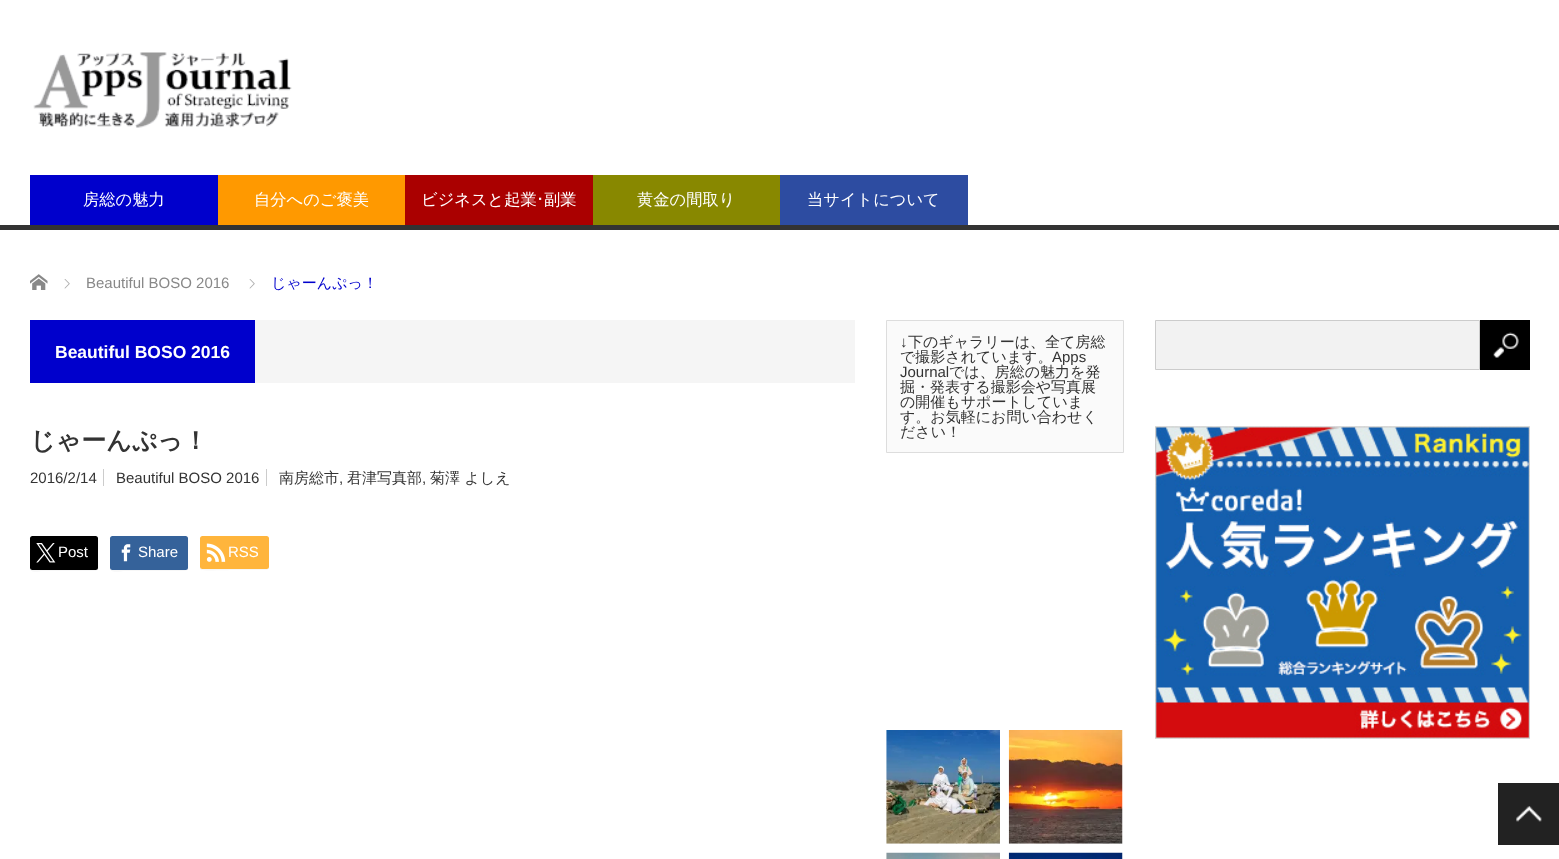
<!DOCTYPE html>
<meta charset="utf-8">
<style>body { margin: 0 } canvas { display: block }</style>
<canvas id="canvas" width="1559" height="859"></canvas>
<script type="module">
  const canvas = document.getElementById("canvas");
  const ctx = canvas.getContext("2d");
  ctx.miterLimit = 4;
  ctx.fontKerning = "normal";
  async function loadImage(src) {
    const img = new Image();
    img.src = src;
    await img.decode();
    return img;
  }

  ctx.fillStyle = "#ffffff";
  ctx.fillRect(0, 0, 1559, 859);
  ctx.fillStyle = "#333333";
  ctx.fillRect(0, 225, 1559, 5);
  ctx.drawImage(await loadImage("img1.png"), 33, 52, 259, 76);
  ctx.fillStyle = "#0000cc";
  ctx.fillRect(30, 175, 188, 50);
  ctx.font = "500 16.25px WenQuanYi Zen Hei";
  ctx.fillStyle = "#ffffff";
  ctx.fillText("房総の魅力", 83, 205);
  ctx.fillStyle = "#ff9900";
  ctx.fillRect(218, 175, 187, 50);
  ctx.fillStyle = "#ffffff";
  ctx.fillText("自分へのご褒美", 254, 205);
  ctx.fillStyle = "#aa0000";
  ctx.fillRect(405, 175, 188, 50);
  ctx.fillStyle = "#ffffff";
  ctx.fillText("ビジネスと起業", 421, 205);
  ctx.font = "16.25px IPAPGothic";
  ctx.fillText("･", 536, 205);
  ctx.font = "500 16.25px WenQuanYi Zen Hei";
  ctx.fillText("副業", 544, 205);
  ctx.fillStyle = "#888800";
  ctx.fillRect(593, 175, 187, 50);
  ctx.fillStyle = "#ffffff";
  ctx.fillText("黄金の間取り", 637, 205);
  ctx.fillStyle = "#2d4ca1";
  ctx.fillRect(780, 175, 188, 50);
  ctx.fillStyle = "#ffffff";
  ctx.fillText("当サイトについて", 807, 205);
  ctx.drawImage(await loadImage("img2.png"), 30, 274, 18, 16);
  ctx.drawImage(await loadImage("img3.png"), 64, 279, 6, 10);
  ctx.font = "15px Liberation Sans";
  ctx.fillStyle = "#888888";
  ctx.fillText("Beautiful BOSO 2016", 86, 288);
  ctx.drawImage(await loadImage("img3.png"), 249, 279, 6, 10);
  ctx.font = "500 15px WenQuanYi Zen Hei";
  ctx.fillStyle = "#0000cc";
  ctx.fillText("じゃーんぷっ！", 271, 288);
  ctx.fillStyle = "#f5f5f5";
  ctx.fillRect(255, 320, 600, 63);
  ctx.fillStyle = "#0000cc";
  ctx.fillRect(30, 320, 225, 63);
  ctx.font = "bold 17.5px Liberation Sans";
  ctx.fillStyle = "#ffffff";
  ctx.fillText("Beautiful BOSO 2016", 55, 358);
  ctx.font = "bold 25px WenQuanYi Zen Hei";
  ctx.fillStyle = "#333333";
  ctx.fillText("じゃーんぷっ！", 30, 449);
  ctx.font = "15px Liberation Sans";
  ctx.fillText("2016/2/14", 30, 483);
  ctx.fillStyle = "#cccccc";
  ctx.fillRect(103, 469, 1, 17);
  ctx.fillStyle = "#333333";
  ctx.fillText("Beautiful BOSO 2016", 116, 483);
  ctx.fillStyle = "#cccccc";
  ctx.fillRect(266, 469, 1, 17);
  ctx.font = "500 15px WenQuanYi Zen Hei";
  ctx.fillStyle = "#333333";
  ctx.fillText("南房総市", 279, 483);
  ctx.font = "15px Liberation Sans";
  ctx.fillText(",", 339, 483);
  ctx.font = "500 15px WenQuanYi Zen Hei";
  ctx.fillText("君津写真部", 347, 483);
  ctx.font = "15px Liberation Sans";
  ctx.fillText(",", 422, 483);
  ctx.font = "500 15px WenQuanYi Zen Hei";
  ctx.fillText("菊澤 よしえ", 430, 483);
  ctx.fillStyle = "#f7f7f7";
  ctx.beginPath();
  ctx.moveTo(30, 568);
  ctx.bezierCurveTo(30, 574, 39, 571, 43, 571);
  ctx.lineTo(85, 571);
  ctx.bezierCurveTo(102, 571, 98, 573, 98, 554);
  ctx.bezierCurveTo(98, 552, 99, 541, 98, 539);
  ctx.lineTo(98, 568);
  ctx.bezierCurveTo(98, 569, 96, 570, 95, 570);
  ctx.lineTo(32, 570);
  ctx.bezierCurveTo(31, 570, 30, 569, 30, 568);
  ctx.closePath();
  ctx.fill();
  ctx.fillStyle = "#000000";
  ctx.beginPath();
  ctx.roundRect(30, 536, 68, 34, 2.5);
  ctx.fill();
  ctx.drawImage(await loadImage("img4.png"), 36, 543, 20, 20);
  ctx.font = "15px Liberation Sans";
  ctx.fillStyle = "#ffffff";
  ctx.fillText("Post", 58, 557);
  ctx.fillStyle = "#f7f7f7";
  ctx.beginPath();
  ctx.moveTo(110, 568);
  ctx.bezierCurveTo(110, 574, 121, 571, 125, 571);
  ctx.lineTo(173, 571);
  ctx.bezierCurveTo(192, 571, 188, 573, 188, 554);
  ctx.bezierCurveTo(188, 552, 189, 541, 188, 539);
  ctx.lineTo(188, 568);
  ctx.bezierCurveTo(188, 569, 186, 570, 185, 570);
  ctx.lineTo(112, 570);
  ctx.bezierCurveTo(111, 570, 110, 569, 110, 568);
  ctx.closePath();
  ctx.fill();
  ctx.fillStyle = "#35629a";
  ctx.beginPath();
  ctx.roundRect(110, 536, 78, 34, 2.5);
  ctx.fill();
  ctx.drawImage(await loadImage("img5.png"), 121, 544, 10, 18);
  ctx.fillStyle = "#ffffff";
  ctx.fillText("Share", 138, 557);
  ctx.fillStyle = "#f7f7f7";
  ctx.beginPath();
  ctx.moveTo(200, 566);
  ctx.bezierCurveTo(200, 568, 200, 569, 201, 570);
  ctx.bezierCurveTo(203, 571, 231, 570, 234, 570);
  ctx.lineTo(256, 570);
  ctx.bezierCurveTo(271, 570, 269, 572, 269, 558);
  ctx.lineTo(269, 539);
  ctx.lineTo(269, 566);
  ctx.bezierCurveTo(269, 568, 268, 569, 266, 569);
  ctx.lineTo(202, 569);
  ctx.bezierCurveTo(201, 569, 200, 568, 200, 566);
  ctx.closePath();
  ctx.fill();
  ctx.fillStyle = "#ffb53c";
  ctx.beginPath();
  ctx.roundRect(200, 536, 69, 33, 2.5);
  ctx.fill();
  ctx.drawImage(await loadImage("img6.png"), 206, 543, 20, 19);
  ctx.fillStyle = "#ffffff";
  ctx.fillText("RSS", 228, 557);
  ctx.fillStyle = "#fafafa";
  ctx.beginPath();
  ctx.rect(886.5, 320.5, 237, 132);
  ctx.fill();
  ctx.strokeStyle = "#dddddd";
  ctx.stroke();
  ctx.fillStyle = "#333333";
  ctx.fillText("↓", 900, 347);
  ctx.font = "500 15px WenQuanYi Zen Hei";
  ctx.fillText("下のギャラリーは、全て房総", 908, 347);
  ctx.fillText("で撮影されています。", 900, 362);
  ctx.font = "15px Liberation Sans";
  ctx.fillText("Apps", 1052, 362);
  ctx.fillText("Journal", 900, 377);
  ctx.font = "500 15px WenQuanYi Zen Hei";
  ctx.fillText("では、房総の魅力を発", 949, 377);
  ctx.fillText("掘・発表する撮影会や写真展", 900, 392);
  ctx.fillText("の開催もサポートしていま", 900, 407);
  ctx.fillText("す。お気軽にお問い合わせく", 900, 422);
  ctx.fillText("ださい！", 900, 437);
  ctx.drawImage(await loadImage("img7.png"), 886, 730, 114, 114);
  ctx.drawImage(await loadImage("img8.png"), 1008, 730, 115, 114);
  ctx.drawImage(await loadImage("img9.png"), 886, 852, 114, 7);
  ctx.drawImage(await loadImage("img10.png"), 1008, 852, 115, 7);
  ctx.fillStyle = "#f2f2f2";
  ctx.beginPath();
  ctx.rect(1155.5, 320.5, 324, 49);
  ctx.fill();
  ctx.strokeStyle = "#cccccc";
  ctx.stroke();
  ctx.fillStyle = "#000000";
  ctx.fillRect(1480, 320, 50, 50);
  ctx.drawImage(await loadImage("img11.png"), 1493, 332, 26, 26);
  ctx.drawImage(await loadImage("img12.png"), 1155, 426, 375, 313);
  ctx.fillStyle = "#222222";
  ctx.fillRect(1498, 783, 61, 62);
  ctx.drawImage(await loadImage("img13.png"), 1516, 806, 26, 16);
</script>
